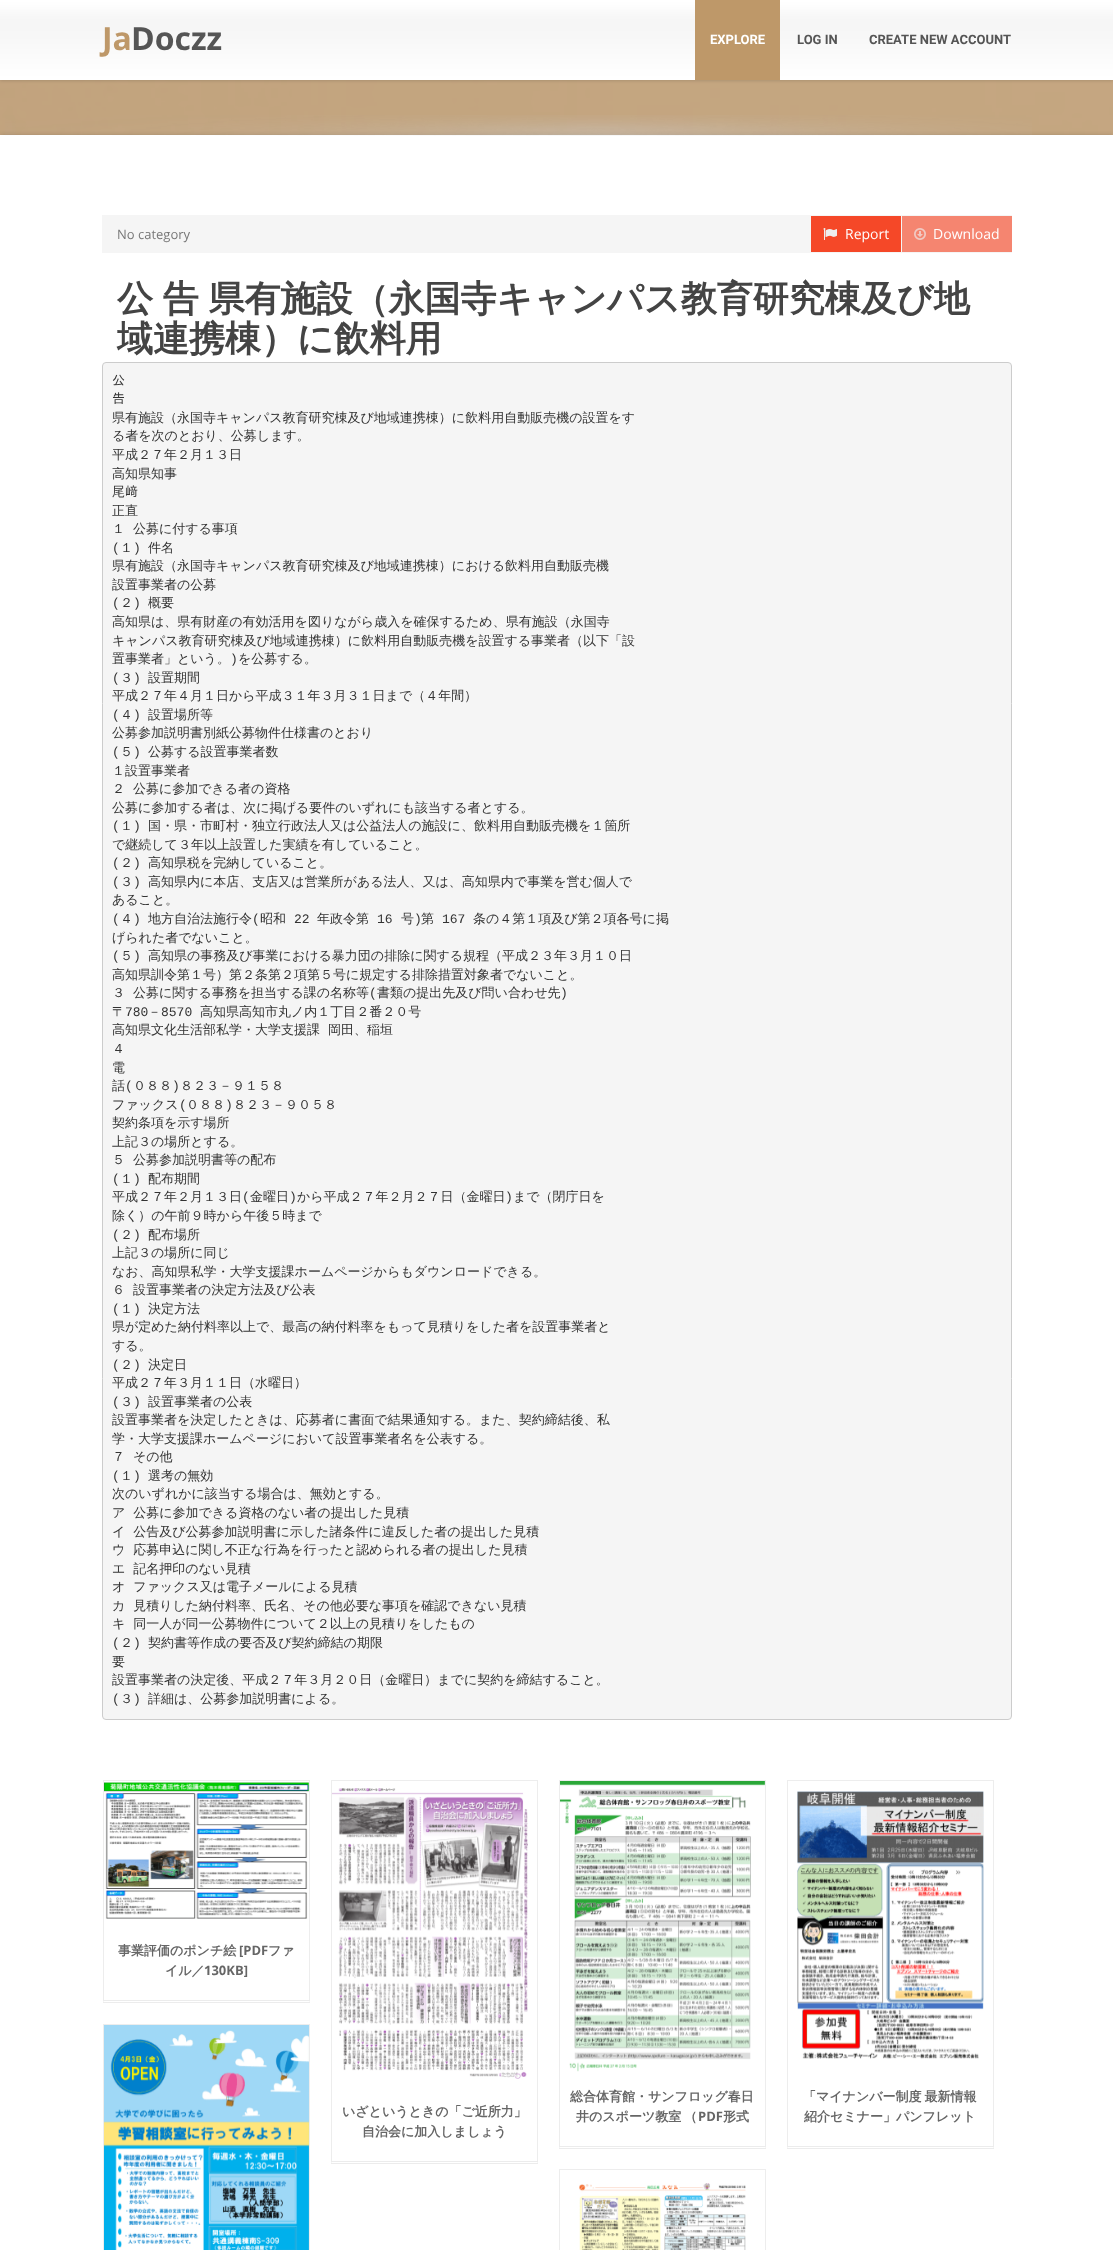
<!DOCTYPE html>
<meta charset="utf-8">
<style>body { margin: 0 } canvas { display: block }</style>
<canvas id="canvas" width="1113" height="2250"></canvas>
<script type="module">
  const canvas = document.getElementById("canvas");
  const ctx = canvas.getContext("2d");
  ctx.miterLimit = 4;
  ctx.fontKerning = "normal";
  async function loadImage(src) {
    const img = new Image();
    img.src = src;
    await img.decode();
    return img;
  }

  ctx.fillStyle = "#ffffff";
  ctx.fillRect(0, 0, 1113, 2250);
  ctx.drawImage(await loadImage("img2.png"), 0, 80, 1113, 55);
  ctx.fillStyle = "rgba(0, 0, 0, 0.12)";
  ctx.filter = "blur(1.5px)";
  ctx.beginPath();
  ctx.rect(0, 1, 1113, 80);
  ctx.fill();
  ctx.filter = "none";
  ctx.drawImage(await loadImage("img1.png"), 0, 0, 1113, 80);
  ctx.font = "bold 32px Open Sans";
  ctx.fillStyle = "#be9869";
  ctx.fillText("Ja", 102, 50);
  ctx.fillStyle = "#555555";
  ctx.fillText("Doczz", 131, 50);
  ctx.fillStyle = "#be9869";
  ctx.fillRect(695, 0, 85, 80);
  ctx.font = "bold 13px Roboto";
  ctx.fillStyle = "#ffffff";
  ctx.fillText("EXPLORE", 710, 44);
  ctx.fillStyle = "#555555";
  ctx.fillText("LOG IN", 797, 44);
  ctx.fillText("CREATE NEW ACCOUNT", 869, 44);
  ctx.fillStyle = "rgba(0, 0, 0, 0.15)";
  ctx.filter = "blur(2px)";
  ctx.beginPath();
  ctx.rect(0, 135, 1113, 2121);
  ctx.fill();
  ctx.filter = "none";
  ctx.fillStyle = "#ffffff";
  ctx.fillRect(0, 135, 1113, 2115);
  ctx.drawImage(await loadImage("img3.png"), 5, 115, 1027, 21);
  ctx.fillStyle = "#f5f5f5";
  ctx.fillRect(102, 215, 910, 38);
  ctx.font = "13px Open Sans";
  ctx.fillStyle = "#777777";
  ctx.fillText("No category", 117, 239);
  ctx.fillStyle = "#f54828";
  ctx.fillRect(811, 216, 90, 36);
  ctx.drawImage(await loadImage("img4.png"), 823, 228, 14, 12);
  ctx.font = "14px Open Sans";
  ctx.fillStyle = "#ffffff";
  ctx.fillText("Report", 845, 239);
  ctx.fillStyle = "#f58570";
  ctx.fillRect(902, 216, 110, 36);
  ctx.drawImage(await loadImage("img5.png"), 914, 228, 12, 12);
  ctx.fillStyle = "#ffffff";
  ctx.fillText("Download", 933, 239);
  ctx.wordSpacing = "-1px";
  ctx.font = "bold 36px WenQuanYi Zen Hei";
  ctx.fillStyle = "#444444";
  ctx.fillText("公 告 県有施設（永国寺キャンパス教育研究棟及び地", 117, 311);
  ctx.wordSpacing = "0px";
  ctx.fillText("域連携棟）に飲料用", 117, 351);
  ctx.fillStyle = "#f5f5f5";
  ctx.beginPath();
  ctx.roundRect(102.5, 362.5, 909, 1357, 3.5);
  ctx.fill();
  ctx.strokeStyle = "#cccccc";
  ctx.stroke();
  ctx.font = "13px IPAGothic";
  ctx.fillStyle = "#333333";
  ctx.fillText("公", 112, 385);
  ctx.fillText("告", 112, 403);
  ctx.font = "500 13px WenQuanYi Zen Hei";
  ctx.fillText("県有施設（永国寺キャンパス教育研究棟及び地域連携棟）に飲料用自動販売機の設置をす", 112, 422);
  ctx.fillText("る者を次のとおり、公募します。", 112, 440);
  ctx.fillText("平成２７年２月１３日", 112, 459);
  ctx.fillText("高知県知事", 112, 478);
  ctx.fillText("尾", 112, 496);
  ctx.font = "13px IPAGothic";
  ctx.fillText("﨑", 125, 496);
  ctx.font = "500 13px WenQuanYi Zen Hei";
  ctx.fillText("正直", 112, 515);
  ctx.wordSpacing = "4px";
  ctx.fillText("１ 公募に付する事項", 112, 533);
  ctx.wordSpacing = "0px";
  ctx.font = "13px Liberation Mono";
  ctx.fillText("(", 112, 552);
  ctx.font = "500 13px WenQuanYi Zen Hei";
  ctx.fillText("１", 120, 552);
  ctx.font = "13px Liberation Mono";
  ctx.fillText(")", 133, 552);
  ctx.font = "500 13px WenQuanYi Zen Hei";
  ctx.fillText("件名", 148, 552);
  ctx.fillText("県有施設（永国寺キャンパス教育研究棟及び地域連携棟）における飲料用自動販売機", 112, 570);
  ctx.fillText("設置事業者の公募", 112, 589);
  ctx.font = "13px Liberation Mono";
  ctx.fillText("(", 112, 607);
  ctx.font = "500 13px WenQuanYi Zen Hei";
  ctx.fillText("２", 120, 607);
  ctx.font = "13px Liberation Mono";
  ctx.fillText(")", 133, 607);
  ctx.font = "500 13px WenQuanYi Zen Hei";
  ctx.fillText("概要", 148, 607);
  ctx.fillText("高知県は、県有財産の有効活用を図りながら歳入を確保するため、県有施設（永国寺", 112, 626);
  ctx.fillText("キャンパス教育研究棟及び地域連携棟）に飲料用自動販売機を設置する事業者（以下「設", 112, 645);
  ctx.fillText("置事業者」という。", 112, 663);
  ctx.font = "13px Liberation Mono";
  ctx.fillText(")", 230, 663);
  ctx.font = "500 13px WenQuanYi Zen Hei";
  ctx.fillText("を公募する。", 238, 663);
  ctx.font = "13px Liberation Mono";
  ctx.fillText("(", 112, 682);
  ctx.font = "500 13px WenQuanYi Zen Hei";
  ctx.fillText("３", 120, 682);
  ctx.font = "13px Liberation Mono";
  ctx.fillText(")", 133, 682);
  ctx.font = "500 13px WenQuanYi Zen Hei";
  ctx.fillText("設置期間", 148, 682);
  ctx.fillText("平成２７年４月１日から平成３１年３月３１日まで（４年間）", 112, 700);
  ctx.font = "13px Liberation Mono";
  ctx.fillText("(", 112, 719);
  ctx.font = "500 13px WenQuanYi Zen Hei";
  ctx.fillText("４", 120, 719);
  ctx.font = "13px Liberation Mono";
  ctx.fillText(")", 133, 719);
  ctx.font = "500 13px WenQuanYi Zen Hei";
  ctx.fillText("設置場所等", 148, 719);
  ctx.fillText("公募参加説明書別紙公募物件仕様書のとおり", 112, 737);
  ctx.font = "13px Liberation Mono";
  ctx.fillText("(", 112, 756);
  ctx.font = "500 13px WenQuanYi Zen Hei";
  ctx.fillText("５", 120, 756);
  ctx.font = "13px Liberation Mono";
  ctx.fillText(")", 133, 756);
  ctx.font = "500 13px WenQuanYi Zen Hei";
  ctx.fillText("公募する設置事業者数", 148, 756);
  ctx.fillText("１設置事業者", 112, 775);
  ctx.wordSpacing = "4px";
  ctx.fillText("２ 公募に参加できる者の資格", 112, 793);
  ctx.wordSpacing = "0px";
  ctx.fillText("公募に参加する者は、次に掲げる要件のいずれにも該当する者とする。", 112, 812);
  ctx.font = "13px Liberation Mono";
  ctx.fillText("(", 112, 830);
  ctx.font = "500 13px WenQuanYi Zen Hei";
  ctx.fillText("１", 120, 830);
  ctx.font = "13px Liberation Mono";
  ctx.fillText(")", 133, 830);
  ctx.font = "500 13px WenQuanYi Zen Hei";
  ctx.fillText("国・県・市町村・独立行政法人又は公益法人の施設に、飲料用自動販売機を１箇所", 148, 830);
  ctx.fillText("で継続して３年以上設置した実績を有していること。", 112, 849);
  ctx.font = "13px Liberation Mono";
  ctx.fillText("(", 112, 867);
  ctx.font = "500 13px WenQuanYi Zen Hei";
  ctx.fillText("２", 120, 867);
  ctx.font = "13px Liberation Mono";
  ctx.fillText(")", 133, 867);
  ctx.font = "500 13px WenQuanYi Zen Hei";
  ctx.fillText("高知県税を完納していること。", 148, 867);
  ctx.font = "13px Liberation Mono";
  ctx.fillText("(", 112, 886);
  ctx.font = "500 13px WenQuanYi Zen Hei";
  ctx.fillText("３", 120, 886);
  ctx.font = "13px Liberation Mono";
  ctx.fillText(")", 133, 886);
  ctx.font = "500 13px WenQuanYi Zen Hei";
  ctx.fillText("高知県内に本店、支店又は営業所がある法人、又は、高知県内で事業を営む個人で", 148, 886);
  ctx.fillText("あること。", 112, 904);
  ctx.font = "13px Liberation Mono";
  ctx.fillText("(", 112, 923);
  ctx.font = "500 13px WenQuanYi Zen Hei";
  ctx.fillText("４", 120, 923);
  ctx.font = "13px Liberation Mono";
  ctx.fillText(")", 133, 923);
  ctx.font = "500 13px WenQuanYi Zen Hei";
  ctx.fillText("地方自治法施行令", 148, 923);
  ctx.font = "13px Liberation Mono";
  ctx.fillText("(", 252, 923);
  ctx.font = "500 13px WenQuanYi Zen Hei";
  ctx.fillText("昭和", 260, 923);
  ctx.font = "13px Liberation Mono";
  ctx.fillText("22", 294, 923);
  ctx.font = "500 13px WenQuanYi Zen Hei";
  ctx.fillText("年政令第", 317, 923);
  ctx.font = "13px Liberation Mono";
  ctx.fillText("16", 377, 923);
  ctx.font = "500 13px WenQuanYi Zen Hei";
  ctx.fillText("号", 401, 923);
  ctx.font = "13px Liberation Mono";
  ctx.fillText(")", 414, 923);
  ctx.font = "500 13px WenQuanYi Zen Hei";
  ctx.fillText("第", 421, 923);
  ctx.font = "13px Liberation Mono";
  ctx.fillText("167", 442, 923);
  ctx.font = "500 13px WenQuanYi Zen Hei";
  ctx.fillText("条の４第１項及び第２項各号に掲", 473, 923);
  ctx.fillText("げられた者でないこと。", 112, 942);
  ctx.font = "13px Liberation Mono";
  ctx.fillText("(", 112, 960);
  ctx.font = "500 13px WenQuanYi Zen Hei";
  ctx.fillText("５", 120, 960);
  ctx.font = "13px Liberation Mono";
  ctx.fillText(")", 133, 960);
  ctx.font = "500 13px WenQuanYi Zen Hei";
  ctx.fillText("高知県の事務及び事業における暴力団の排除に関する規程（平成２３年３月１０日", 148, 960);
  ctx.fillText("高知県訓令第１号）第２条第２項第５号に規定する排除措置対象者でないこと。", 112, 979);
  ctx.wordSpacing = "4px";
  ctx.fillText("３ 公募に関する事務を担当する課の名称等", 112, 997);
  ctx.wordSpacing = "0px";
  ctx.font = "13px Liberation Mono";
  ctx.fillText("(", 369, 997);
  ctx.font = "500 13px WenQuanYi Zen Hei";
  ctx.fillText("書類の提出先及び問い合わせ先", 377, 997);
  ctx.font = "13px Liberation Mono";
  ctx.fillText(")", 560, 997);
  ctx.font = "500 13px WenQuanYi Zen Hei";
  ctx.fillText("〒", 112, 1016);
  ctx.font = "13px Liberation Mono";
  ctx.fillText("780", 125, 1016);
  ctx.font = "500 13px WenQuanYi Zen Hei";
  ctx.fillText("－", 148, 1016);
  ctx.font = "13px Liberation Mono";
  ctx.fillText("8570", 161, 1016);
  ctx.font = "500 13px WenQuanYi Zen Hei";
  ctx.fillText("高知県高知市丸ノ内１丁目２番２０号", 200, 1016);
  ctx.wordSpacing = "4px";
  ctx.fillText("高知県文化生活部私学・大学支援課 岡田、稲垣", 112, 1034);
  ctx.wordSpacing = "0px";
  ctx.fillText("４", 112, 1053);
  ctx.fillText("電", 112, 1072);
  ctx.fillText("話", 112, 1090);
  ctx.font = "13px Liberation Mono";
  ctx.fillText("(", 125, 1090);
  ctx.font = "500 13px WenQuanYi Zen Hei";
  ctx.fillText("０８８", 133, 1090);
  ctx.font = "13px Liberation Mono";
  ctx.fillText(")", 172, 1090);
  ctx.font = "500 13px WenQuanYi Zen Hei";
  ctx.fillText("８２３－９１５８", 180, 1090);
  ctx.fillText("ファックス", 112, 1109);
  ctx.font = "13px Liberation Mono";
  ctx.fillText("(", 179, 1109);
  ctx.font = "500 13px WenQuanYi Zen Hei";
  ctx.fillText("０８８", 186, 1109);
  ctx.font = "13px Liberation Mono";
  ctx.fillText(")", 225, 1109);
  ctx.font = "500 13px WenQuanYi Zen Hei";
  ctx.fillText("８２３－９０５８", 233, 1109);
  ctx.fillText("契約条項を示す場所", 112, 1127);
  ctx.fillText("上記３の場所とする。", 112, 1146);
  ctx.wordSpacing = "4px";
  ctx.fillText("５ 公募参加説明書等の配布", 112, 1164);
  ctx.wordSpacing = "0px";
  ctx.font = "13px Liberation Mono";
  ctx.fillText("(", 112, 1183);
  ctx.font = "500 13px WenQuanYi Zen Hei";
  ctx.fillText("１", 120, 1183);
  ctx.font = "13px Liberation Mono";
  ctx.fillText(")", 133, 1183);
  ctx.font = "500 13px WenQuanYi Zen Hei";
  ctx.fillText("配布期間", 148, 1183);
  ctx.fillText("平成２７年２月１３日", 112, 1201);
  ctx.font = "13px Liberation Mono";
  ctx.fillText("(", 242, 1201);
  ctx.font = "500 13px WenQuanYi Zen Hei";
  ctx.fillText("金曜日", 250, 1201);
  ctx.font = "13px Liberation Mono";
  ctx.fillText(")", 289, 1201);
  ctx.font = "500 13px WenQuanYi Zen Hei";
  ctx.fillText("から平成２７年２月２７日（金曜日", 297, 1201);
  ctx.font = "13px Liberation Mono";
  ctx.fillText(")", 505, 1201);
  ctx.font = "500 13px WenQuanYi Zen Hei";
  ctx.fillText("まで（閉庁日を", 513, 1201);
  ctx.fillText("除く）の午前９時から午後５時まで", 112, 1220);
  ctx.font = "13px Liberation Mono";
  ctx.fillText("(", 112, 1239);
  ctx.font = "500 13px WenQuanYi Zen Hei";
  ctx.fillText("２", 120, 1239);
  ctx.font = "13px Liberation Mono";
  ctx.fillText(")", 133, 1239);
  ctx.font = "500 13px WenQuanYi Zen Hei";
  ctx.fillText("配布場所", 148, 1239);
  ctx.fillText("上記３の場所に同じ", 112, 1257);
  ctx.fillText("なお、高知県私学・大学支援課ホームページからもダウンロードできる。", 112, 1276);
  ctx.wordSpacing = "4px";
  ctx.fillText("６ 設置事業者の決定方法及び公表", 112, 1294);
  ctx.wordSpacing = "0px";
  ctx.font = "13px Liberation Mono";
  ctx.fillText("(", 112, 1313);
  ctx.font = "500 13px WenQuanYi Zen Hei";
  ctx.fillText("１", 120, 1313);
  ctx.font = "13px Liberation Mono";
  ctx.fillText(")", 133, 1313);
  ctx.font = "500 13px WenQuanYi Zen Hei";
  ctx.fillText("決定方法", 148, 1313);
  ctx.fillText("県が定めた納付料率以上で、最高の納付料率をもって見積りをした者を設置事業者と", 112, 1331);
  ctx.fillText("する。", 112, 1350);
  ctx.font = "13px Liberation Mono";
  ctx.fillText("(", 112, 1369);
  ctx.font = "500 13px WenQuanYi Zen Hei";
  ctx.fillText("２", 120, 1369);
  ctx.font = "13px Liberation Mono";
  ctx.fillText(")", 133, 1369);
  ctx.font = "500 13px WenQuanYi Zen Hei";
  ctx.fillText("決定日", 148, 1369);
  ctx.fillText("平成２７年３月１１日（水曜日）", 112, 1387);
  ctx.font = "13px Liberation Mono";
  ctx.fillText("(", 112, 1406);
  ctx.font = "500 13px WenQuanYi Zen Hei";
  ctx.fillText("３", 120, 1406);
  ctx.font = "13px Liberation Mono";
  ctx.fillText(")", 133, 1406);
  ctx.font = "500 13px WenQuanYi Zen Hei";
  ctx.fillText("設置事業者の公表", 148, 1406);
  ctx.fillText("設置事業者を決定したときは、応募者に書面で結果通知する。また、契約締結後、私", 112, 1424);
  ctx.fillText("学・大学支援課ホームページにおいて設置事業者名を公表する。", 112, 1443);
  ctx.wordSpacing = "4px";
  ctx.fillText("７ その他", 112, 1461);
  ctx.wordSpacing = "0px";
  ctx.font = "13px Liberation Mono";
  ctx.fillText("(", 112, 1480);
  ctx.font = "500 13px WenQuanYi Zen Hei";
  ctx.fillText("１", 120, 1480);
  ctx.font = "13px Liberation Mono";
  ctx.fillText(")", 133, 1480);
  ctx.font = "500 13px WenQuanYi Zen Hei";
  ctx.fillText("選考の無効", 148, 1480);
  ctx.fillText("次のいずれかに該当する場合は、無効とする。", 112, 1498);
  ctx.wordSpacing = "4px";
  ctx.fillText("ア 公募に参加できる資格のない者の提出した見積", 112, 1517);
  ctx.fillText("イ 公告及び公募参加説明書に示した諸条件に違反した者の提出した見積", 112, 1536);
  ctx.fillText("ウ 応募申込に関し不正な行為を行ったと認められる者の提出した見積", 112, 1554);
  ctx.fillText("エ 記名押印のない見積", 112, 1573);
  ctx.fillText("オ ファックス又は電子メールによる見積", 112, 1591);
  ctx.fillText("カ 見積りした納付料率、氏名、その他必要な事項を確認できない見積", 112, 1610);
  ctx.fillText("キ 同一人が同一公募物件について２以上の見積りをしたもの", 112, 1628);
  ctx.wordSpacing = "0px";
  ctx.font = "13px Liberation Mono";
  ctx.fillText("(", 112, 1647);
  ctx.font = "500 13px WenQuanYi Zen Hei";
  ctx.fillText("２", 120, 1647);
  ctx.font = "13px Liberation Mono";
  ctx.fillText(")", 133, 1647);
  ctx.font = "500 13px WenQuanYi Zen Hei";
  ctx.fillText("契約書等作成の要否及び契約締結の期限", 148, 1647);
  ctx.fillText("要", 112, 1666);
  ctx.fillText("設置事業者の決定後、平成２７年３月２０日（金曜日）までに契約を締結すること。", 112, 1684);
  ctx.font = "13px Liberation Mono";
  ctx.fillText("(", 112, 1703);
  ctx.font = "500 13px WenQuanYi Zen Hei";
  ctx.fillText("３", 120, 1703);
  ctx.font = "13px Liberation Mono";
  ctx.fillText(")", 133, 1703);
  ctx.font = "500 13px WenQuanYi Zen Hei";
  ctx.fillText("詳細は、公募参加説明書による。", 148, 1703);
  ctx.fillStyle = "#ededed";
  ctx.fillRect(103, 1780, 207, 1);
  ctx.beginPath();
  ctx.moveTo(310, 1780);
  ctx.lineTo(310, 2003);
  ctx.lineTo(309, 2000);
  ctx.lineTo(309, 1781);
  ctx.closePath();
  ctx.fill();
  ctx.fillStyle = "#ececec";
  ctx.fillRect(103, 2000, 207, 1);
  ctx.fillRect(103, 2002, 207, 1);
  ctx.fillStyle = "#ededed";
  ctx.beginPath();
  ctx.moveTo(103, 2003);
  ctx.lineTo(103, 1780);
  ctx.lineTo(104, 1781);
  ctx.lineTo(104, 2000);
  ctx.closePath();
  ctx.fill();
  ctx.drawImage(await loadImage("img6.png"), 104, 1782, 205, 137);
  ctx.font = "bold 13px WenQuanYi Zen Hei";
  ctx.fillStyle = "#666666";
  ctx.fillText("事業評価のポンチ絵", 118, 1955);
  ctx.font = "bold 13px Open Sans";
  ctx.fillText("[PDF", 239, 1955);
  ctx.font = "bold 13px WenQuanYi Zen Hei";
  ctx.fillText("ファ", 268, 1955);
  ctx.fillText("イル／", 165, 1975);
  ctx.font = "bold 13px Open Sans";
  ctx.fillText("130KB]", 204, 1975);
  ctx.fillStyle = "#ededed";
  ctx.fillRect(103, 2024, 207, 1);
  ctx.beginPath();
  ctx.moveTo(310, 2024);
  ctx.lineTo(310, 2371);
  ctx.lineTo(309, 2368);
  ctx.lineTo(309, 2025);
  ctx.closePath();
  ctx.fill();
  ctx.beginPath();
  ctx.moveTo(103, 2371);
  ctx.lineTo(103, 2024);
  ctx.lineTo(104, 2025);
  ctx.lineTo(104, 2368);
  ctx.closePath();
  ctx.fill();
  ctx.drawImage(await loadImage("img7.png"), 104, 2025, 205, 225);
  ctx.fillRect(331, 1780, 207, 1);
  ctx.beginPath();
  ctx.moveTo(538, 1780);
  ctx.lineTo(538, 2164);
  ctx.lineTo(537, 2161);
  ctx.lineTo(537, 1781);
  ctx.closePath();
  ctx.fill();
  ctx.fillStyle = "#ececec";
  ctx.fillRect(331, 2161, 207, 1);
  ctx.fillRect(331, 2163, 207, 1);
  ctx.fillStyle = "#ededed";
  ctx.beginPath();
  ctx.moveTo(331, 2164);
  ctx.lineTo(331, 1780);
  ctx.lineTo(332, 1781);
  ctx.lineTo(332, 2161);
  ctx.closePath();
  ctx.fill();
  ctx.drawImage(await loadImage("img8.png"), 332, 1788, 196, 291);
  ctx.font = "bold 13px WenQuanYi Zen Hei";
  ctx.fillStyle = "#666666";
  ctx.fillText("いざというときの「ご近所力」", 342, 2116);
  ctx.fillText("自治会に加入しましょう", 362, 2136);
  ctx.fillStyle = "#ededed";
  ctx.fillRect(559, 1780, 207, 1);
  ctx.beginPath();
  ctx.moveTo(766, 1780);
  ctx.lineTo(766, 2149);
  ctx.lineTo(765, 2146);
  ctx.lineTo(765, 1781);
  ctx.closePath();
  ctx.fill();
  ctx.fillStyle = "#ececec";
  ctx.fillRect(559, 2146, 207, 1);
  ctx.fillRect(559, 2148, 207, 1);
  ctx.fillStyle = "#ededed";
  ctx.beginPath();
  ctx.moveTo(559, 2149);
  ctx.lineTo(559, 1780);
  ctx.lineTo(560, 1781);
  ctx.lineTo(560, 2146);
  ctx.closePath();
  ctx.fill();
  ctx.drawImage(await loadImage("img9.png"), 560, 1781, 205, 291);
  ctx.fillStyle = "#666666";
  ctx.fillText("総合体育館・サンフロッグ春日", 570, 2101);
  ctx.wordSpacing = "-1px";
  ctx.fillText("井のスポーツ教室 （", 576, 2121);
  ctx.wordSpacing = "0px";
  ctx.font = "bold 13px Open Sans";
  ctx.fillText("PDF", 698, 2121);
  ctx.font = "bold 13px WenQuanYi Zen Hei";
  ctx.fillText("形式", 723, 2121);
  ctx.fillStyle = "#ededed";
  ctx.fillRect(787, 1780, 207, 1);
  ctx.beginPath();
  ctx.moveTo(994, 1780);
  ctx.lineTo(994, 2149);
  ctx.lineTo(993, 2146);
  ctx.lineTo(993, 1781);
  ctx.closePath();
  ctx.fill();
  ctx.fillStyle = "#ececec";
  ctx.fillRect(787, 2146, 207, 1);
  ctx.fillRect(787, 2148, 207, 1);
  ctx.fillStyle = "#ededed";
  ctx.beginPath();
  ctx.moveTo(787, 2149);
  ctx.lineTo(787, 1780);
  ctx.lineTo(788, 1781);
  ctx.lineTo(788, 2146);
  ctx.closePath();
  ctx.fill();
  ctx.drawImage(await loadImage("img10.png"), 797, 1791, 187, 268);
  ctx.wordSpacing = "-1px";
  ctx.fillStyle = "#666666";
  ctx.fillText("「マイナンバー制度 最新情報", 803, 2101);
  ctx.wordSpacing = "0px";
  ctx.fillText("紹介セミナー」パンフレット", 804, 2121);
  ctx.fillStyle = "#ededed";
  ctx.fillRect(559, 2169, 207, 1);
  ctx.beginPath();
  ctx.moveTo(766, 2169);
  ctx.lineTo(766, 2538);
  ctx.lineTo(765, 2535);
  ctx.lineTo(765, 2170);
  ctx.closePath();
  ctx.fill();
  ctx.beginPath();
  ctx.moveTo(559, 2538);
  ctx.lineTo(559, 2169);
  ctx.lineTo(560, 2170);
  ctx.lineTo(560, 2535);
  ctx.closePath();
  ctx.fill();
  ctx.drawImage(await loadImage("img11.png"), 579, 2183, 167, 67);
</script>
